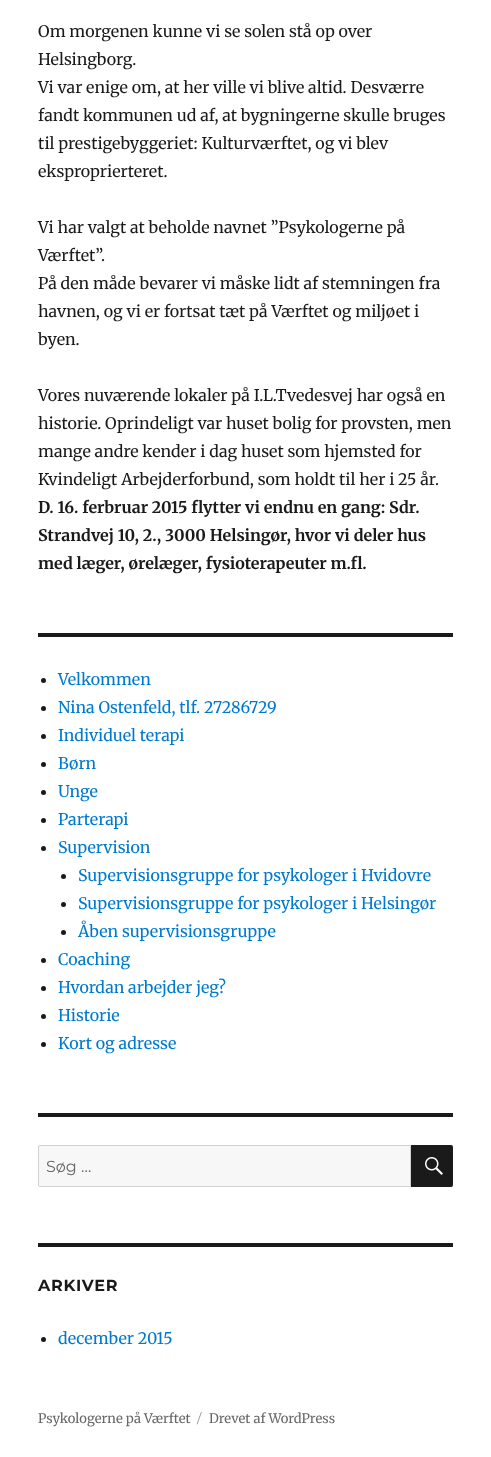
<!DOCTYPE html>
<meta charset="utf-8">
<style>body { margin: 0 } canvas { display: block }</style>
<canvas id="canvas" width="491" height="1457"></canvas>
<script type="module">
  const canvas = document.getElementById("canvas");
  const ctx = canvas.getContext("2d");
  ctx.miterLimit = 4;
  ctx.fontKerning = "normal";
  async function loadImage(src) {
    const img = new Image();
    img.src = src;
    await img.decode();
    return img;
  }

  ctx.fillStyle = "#ffffff";
  ctx.fillRect(0, 0, 491, 1457);
  ctx.font = "16px Merriweather";
  ctx.fillStyle = "#1a1a1a";
  ctx.fillText("Om morgenen kunne vi se solen stå op over", 38, 37);
  ctx.fillText("Helsingborg.", 38, 65);
  ctx.fillText("Vi var enige om, at her ville vi blive altid. Desværre", 38, 93);
  ctx.fillText("fandt kommunen ud af, at bygningerne skulle bruges", 38, 121);
  ctx.fillText("til prestigebyggeriet: Kulturværftet, og vi blev", 38, 149);
  ctx.fillText("eksproprierteret.", 38, 177);
  ctx.fillText("Vi har valgt at beholde navnet ”Psykologerne på", 38, 233);
  ctx.fillText("Værftet”.", 38, 261);
  ctx.fillText("På den måde bevarer vi måske lidt af stemningen fra", 38, 289);
  ctx.fillText("havnen, og vi er fortsat tæt på Værftet og miljøet i", 38, 317);
  ctx.fillText("byen.", 38, 345);
  ctx.fillText("Vores nuværende lokaler på I.L.Tvedesvej har også en", 38, 401);
  ctx.fillText("historie. Oprindeligt var huset bolig for provsten, men", 38, 429);
  ctx.fillText("mange andre kender i dag huset som hjemsted for", 38, 457);
  ctx.fillText("Kvindeligt Arbejderforbund, som holdt til her i 25 år.", 38, 485);
  ctx.font = "bold 16px Merriweather";
  ctx.fillText("D. 16. ferbruar 2015 flytter vi endnu en gang: Sdr.", 38, 513);
  ctx.fillText("Strandvej 10, 2., 3000 Helsingør, hvor vi deler hus", 38, 541);
  ctx.fillText("med læger, ørelæger, fysioterapeuter m.fl.", 38, 569);
  ctx.fillRect(38, 633, 415, 4);
  ctx.beginPath();
  ctx.arc(43.5, 680.5, 2.5, 0, Math.PI * 2);
  ctx.fill();
  ctx.font = "16px Merriweather";
  ctx.fillStyle = "#007acc";
  ctx.fillText("Velkommen", 58, 685);
  ctx.fillStyle = "#1a1a1a";
  ctx.beginPath();
  ctx.arc(43.5, 708.5, 2.5, 0, Math.PI * 2);
  ctx.fill();
  ctx.fillStyle = "#007acc";
  ctx.fillText("Nina Ostenfeld, tlf. 27286729", 58, 713);
  ctx.fillStyle = "#1a1a1a";
  ctx.beginPath();
  ctx.arc(43.5, 736.5, 2.5, 0, Math.PI * 2);
  ctx.fill();
  ctx.fillStyle = "#007acc";
  ctx.fillText("Individuel terapi", 58, 741);
  ctx.fillStyle = "#1a1a1a";
  ctx.beginPath();
  ctx.arc(43.5, 764.5, 2.5, 0, Math.PI * 2);
  ctx.fill();
  ctx.fillStyle = "#007acc";
  ctx.fillText("Børn", 58, 769);
  ctx.fillStyle = "#1a1a1a";
  ctx.beginPath();
  ctx.arc(43.5, 792.5, 2.5, 0, Math.PI * 2);
  ctx.fill();
  ctx.fillStyle = "#007acc";
  ctx.fillText("Unge", 58, 797);
  ctx.fillStyle = "#1a1a1a";
  ctx.beginPath();
  ctx.arc(43.5, 820.5, 2.5, 0, Math.PI * 2);
  ctx.fill();
  ctx.fillStyle = "#007acc";
  ctx.fillText("Parterapi", 58, 825);
  ctx.fillStyle = "#1a1a1a";
  ctx.beginPath();
  ctx.arc(43.5, 848.5, 2.5, 0, Math.PI * 2);
  ctx.fill();
  ctx.fillStyle = "#007acc";
  ctx.fillText("Supervision", 58, 853);
  ctx.fillStyle = "#1a1a1a";
  ctx.beginPath();
  ctx.arc(63.5, 876.5, 2.5, 0, Math.PI * 2);
  ctx.fill();
  ctx.fillStyle = "#007acc";
  ctx.fillText("Supervisionsgruppe for psykologer i Hvidovre", 78, 881);
  ctx.fillStyle = "#1a1a1a";
  ctx.beginPath();
  ctx.arc(63.5, 904.5, 2.5, 0, Math.PI * 2);
  ctx.fill();
  ctx.fillStyle = "#007acc";
  ctx.fillText("Supervisionsgruppe for psykologer i Helsingør", 78, 909);
  ctx.fillStyle = "#1a1a1a";
  ctx.beginPath();
  ctx.arc(63.5, 932.5, 2.5, 0, Math.PI * 2);
  ctx.fill();
  ctx.fillStyle = "#007acc";
  ctx.fillText("Åben supervisionsgruppe", 78, 937);
  ctx.fillStyle = "#1a1a1a";
  ctx.beginPath();
  ctx.arc(43.5, 960.5, 2.5, 0, Math.PI * 2);
  ctx.fill();
  ctx.fillStyle = "#007acc";
  ctx.fillText("Coaching", 58, 965);
  ctx.fillStyle = "#1a1a1a";
  ctx.beginPath();
  ctx.arc(43.5, 988.5, 2.5, 0, Math.PI * 2);
  ctx.fill();
  ctx.fillStyle = "#007acc";
  ctx.fillText("Hvordan arbejder jeg?", 58, 993);
  ctx.fillStyle = "#1a1a1a";
  ctx.beginPath();
  ctx.arc(43.5, 1016.5, 2.5, 0, Math.PI * 2);
  ctx.fill();
  ctx.fillStyle = "#007acc";
  ctx.fillText("Historie", 58, 1021);
  ctx.fillStyle = "#1a1a1a";
  ctx.beginPath();
  ctx.arc(43.5, 1044.5, 2.5, 0, Math.PI * 2);
  ctx.fill();
  ctx.fillStyle = "#007acc";
  ctx.fillText("Kort og adresse", 58, 1049);
  ctx.fillStyle = "#1a1a1a";
  ctx.fillRect(38, 1113, 415, 4);
  ctx.fillStyle = "#f7f7f7";
  ctx.beginPath();
  ctx.roundRect(38.5, 1145.5, 372, 41, [1.5, 0, 0, 1.5]);
  ctx.fill();
  ctx.strokeStyle = "#d1d1d1";
  ctx.stroke();
  ctx.font = "16px Montserrat";
  ctx.fillStyle = "#686868";
  ctx.fillText("Søg …", 46, 1172);
  ctx.fillStyle = "#1a1a1a";
  ctx.beginPath();
  ctx.roundRect(411, 1145, 42, 42, [0, 2, 2, 0]);
  ctx.fill();
  ctx.drawImage(await loadImage("img1.png"), 425, 1157, 18, 18);
  ctx.fillRect(38, 1243, 415, 4);
  ctx.letterSpacing = "0.75px";
  ctx.font = "bold 16px Montserrat";
  ctx.fillText("ARKIVER", 38, 1291);
  ctx.beginPath();
  ctx.arc(43.5, 1339.5, 2.5, 0, Math.PI * 2);
  ctx.fill();
  ctx.letterSpacing = "0px";
  ctx.font = "16px Merriweather";
  ctx.fillStyle = "#007acc";
  ctx.fillText("december 2015", 58, 1344);
  ctx.font = "13px Merriweather";
  ctx.fillStyle = "#686868";
  ctx.fillText("Psykologerne på Værftet", 38, 1423);
  ctx.font = "13px Montserrat";
  ctx.fillStyle = "#959595";
  ctx.fillText("/", 197, 1423);
  ctx.font = "13px Merriweather";
  ctx.fillStyle = "#686868";
  ctx.fillText("Drevet af WordPress", 209, 1423);
</script>
